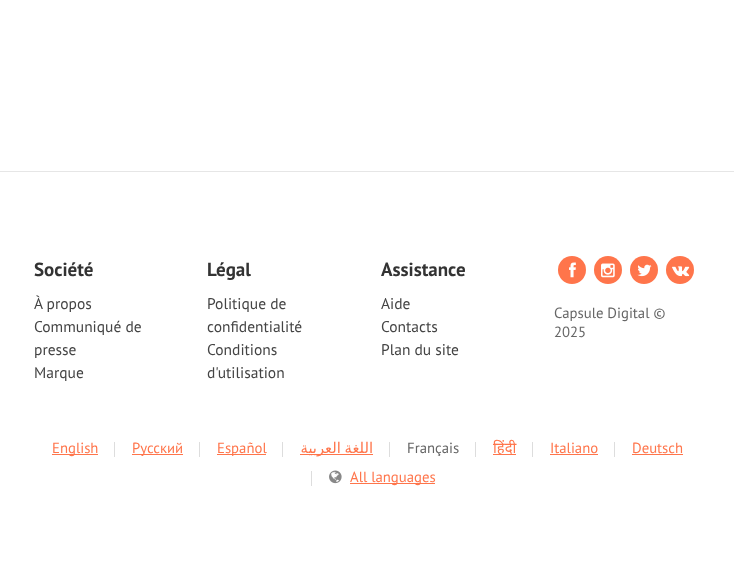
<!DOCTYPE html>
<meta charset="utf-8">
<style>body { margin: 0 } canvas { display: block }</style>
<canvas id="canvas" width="734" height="572"></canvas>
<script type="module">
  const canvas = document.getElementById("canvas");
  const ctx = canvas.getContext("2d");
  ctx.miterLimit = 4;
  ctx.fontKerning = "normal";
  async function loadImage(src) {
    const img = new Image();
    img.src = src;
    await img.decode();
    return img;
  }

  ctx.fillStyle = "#ffffff";
  ctx.fillRect(0, 0, 734, 572);
  ctx.fillStyle = "#e6e6e6";
  ctx.fillRect(0, 171, 734, 1);
  ctx.font = "bold 19px PT Sans";
  ctx.fillStyle = "#333333";
  ctx.fillText("Société", 34, 276);
  ctx.font = "15.5px PT Sans";
  ctx.fillStyle = "#444444";
  ctx.fillText("À propos", 34, 309);
  ctx.fillText("Communiqué de", 34, 332);
  ctx.fillText("presse", 34, 355);
  ctx.fillText("Marque", 34, 378);
  ctx.font = "bold 19px PT Sans";
  ctx.fillStyle = "#333333";
  ctx.fillText("Légal", 207, 276);
  ctx.font = "15.5px PT Sans";
  ctx.fillStyle = "#444444";
  ctx.fillText("Politique de", 207, 309);
  ctx.fillText("confidentialité", 207, 332);
  ctx.fillText("Conditions", 207, 355);
  ctx.fillText("d'utilisation", 207, 378);
  ctx.font = "bold 19px PT Sans";
  ctx.fillStyle = "#333333";
  ctx.fillText("Assistance", 381, 276);
  ctx.font = "15.5px PT Sans";
  ctx.fillStyle = "#444444";
  ctx.fillText("Aide", 381, 309);
  ctx.fillText("Contacts", 381, 332);
  ctx.fillText("Plan du site", 381, 355);
  ctx.fillStyle = "#ff754b";
  ctx.beginPath();
  ctx.arc(572, 270, 14, 0, Math.PI * 2);
  ctx.fill();
  ctx.drawImage(await loadImage("img1.png"), 569, 262, 7, 16);
  ctx.beginPath();
  ctx.arc(608, 270, 14, 0, Math.PI * 2);
  ctx.fill();
  ctx.drawImage(await loadImage("img2.png"), 601, 263, 14, 15);
  ctx.beginPath();
  ctx.arc(644, 270, 14, 0, Math.PI * 2);
  ctx.fill();
  ctx.drawImage(await loadImage("img3.png"), 637, 264, 15, 13);
  ctx.beginPath();
  ctx.arc(680, 270, 14, 0, Math.PI * 2);
  ctx.fill();
  ctx.drawImage(await loadImage("img4.png"), 672, 266, 18, 11);
  ctx.font = "14.75px PT Sans";
  ctx.fillStyle = "#666666";
  ctx.fillText("Capsule Digital ©", 554, 318);
  ctx.fillText("2025", 554, 337);
  ctx.fillStyle = "#ff754b";
  ctx.fillRect(52, 454, 46, 1);
  ctx.fillText("English", 52, 453);
  ctx.fillStyle = "#dddddd";
  ctx.fillRect(114, 442, 1, 15);
  ctx.fillStyle = "#ff754b";
  ctx.fillRect(132, 454, 51, 1);
  ctx.fillText("Русский", 132, 453);
  ctx.fillStyle = "#dddddd";
  ctx.fillRect(199, 442, 1, 15);
  ctx.fillStyle = "#ff754b";
  ctx.fillRect(217, 454, 49, 1);
  ctx.fillText("Español", 217, 453);
  ctx.fillStyle = "#dddddd";
  ctx.fillRect(282, 442, 1, 15);
  ctx.fillStyle = "#ff754b";
  ctx.fillRect(300, 454, 73, 1);
  ctx.wordSpacing = "-1px";
  ctx.direction = "rtl";
  ctx.font = "14.75px DejaVu Sans";
  ctx.fillText("اللغة العربية", 373, 453);
  ctx.fillStyle = "#dddddd";
  ctx.fillRect(389, 442, 1, 15);
  ctx.wordSpacing = "0px";
  ctx.direction = "ltr";
  ctx.font = "14.75px PT Sans";
  ctx.fillStyle = "#666666";
  ctx.fillText("Français", 407, 453);
  ctx.fillStyle = "#dddddd";
  ctx.fillRect(475, 442, 1, 15);
  ctx.fillStyle = "#ff754b";
  ctx.fillRect(493, 454, 23, 1);
  ctx.font = "14.75px Noto Sans";
  ctx.fillText("हिंदी", 493, 453);
  ctx.fillStyle = "#dddddd";
  ctx.fillRect(532, 442, 1, 15);
  ctx.font = "14.75px PT Sans";
  ctx.fillStyle = "#ff754b";
  ctx.fillText("Italiano", 550, 453);
  ctx.fillRect(550, 454, 48, 1);
  ctx.fillStyle = "#dddddd";
  ctx.fillRect(614, 442, 1, 15);
  ctx.fillStyle = "#ff754b";
  ctx.fillText("Deutsch", 632, 453);
  ctx.fillRect(632, 454, 51, 1);
  ctx.fillStyle = "#dddddd";
  ctx.fillRect(311, 471, 1, 15);
  ctx.drawImage(await loadImage("img5.png"), 329, 470, 13, 14);
  ctx.fillStyle = "#ff754b";
  ctx.fillRect(350, 483, 85, 1);
  ctx.fillText("All languages", 350, 482);
</script>
